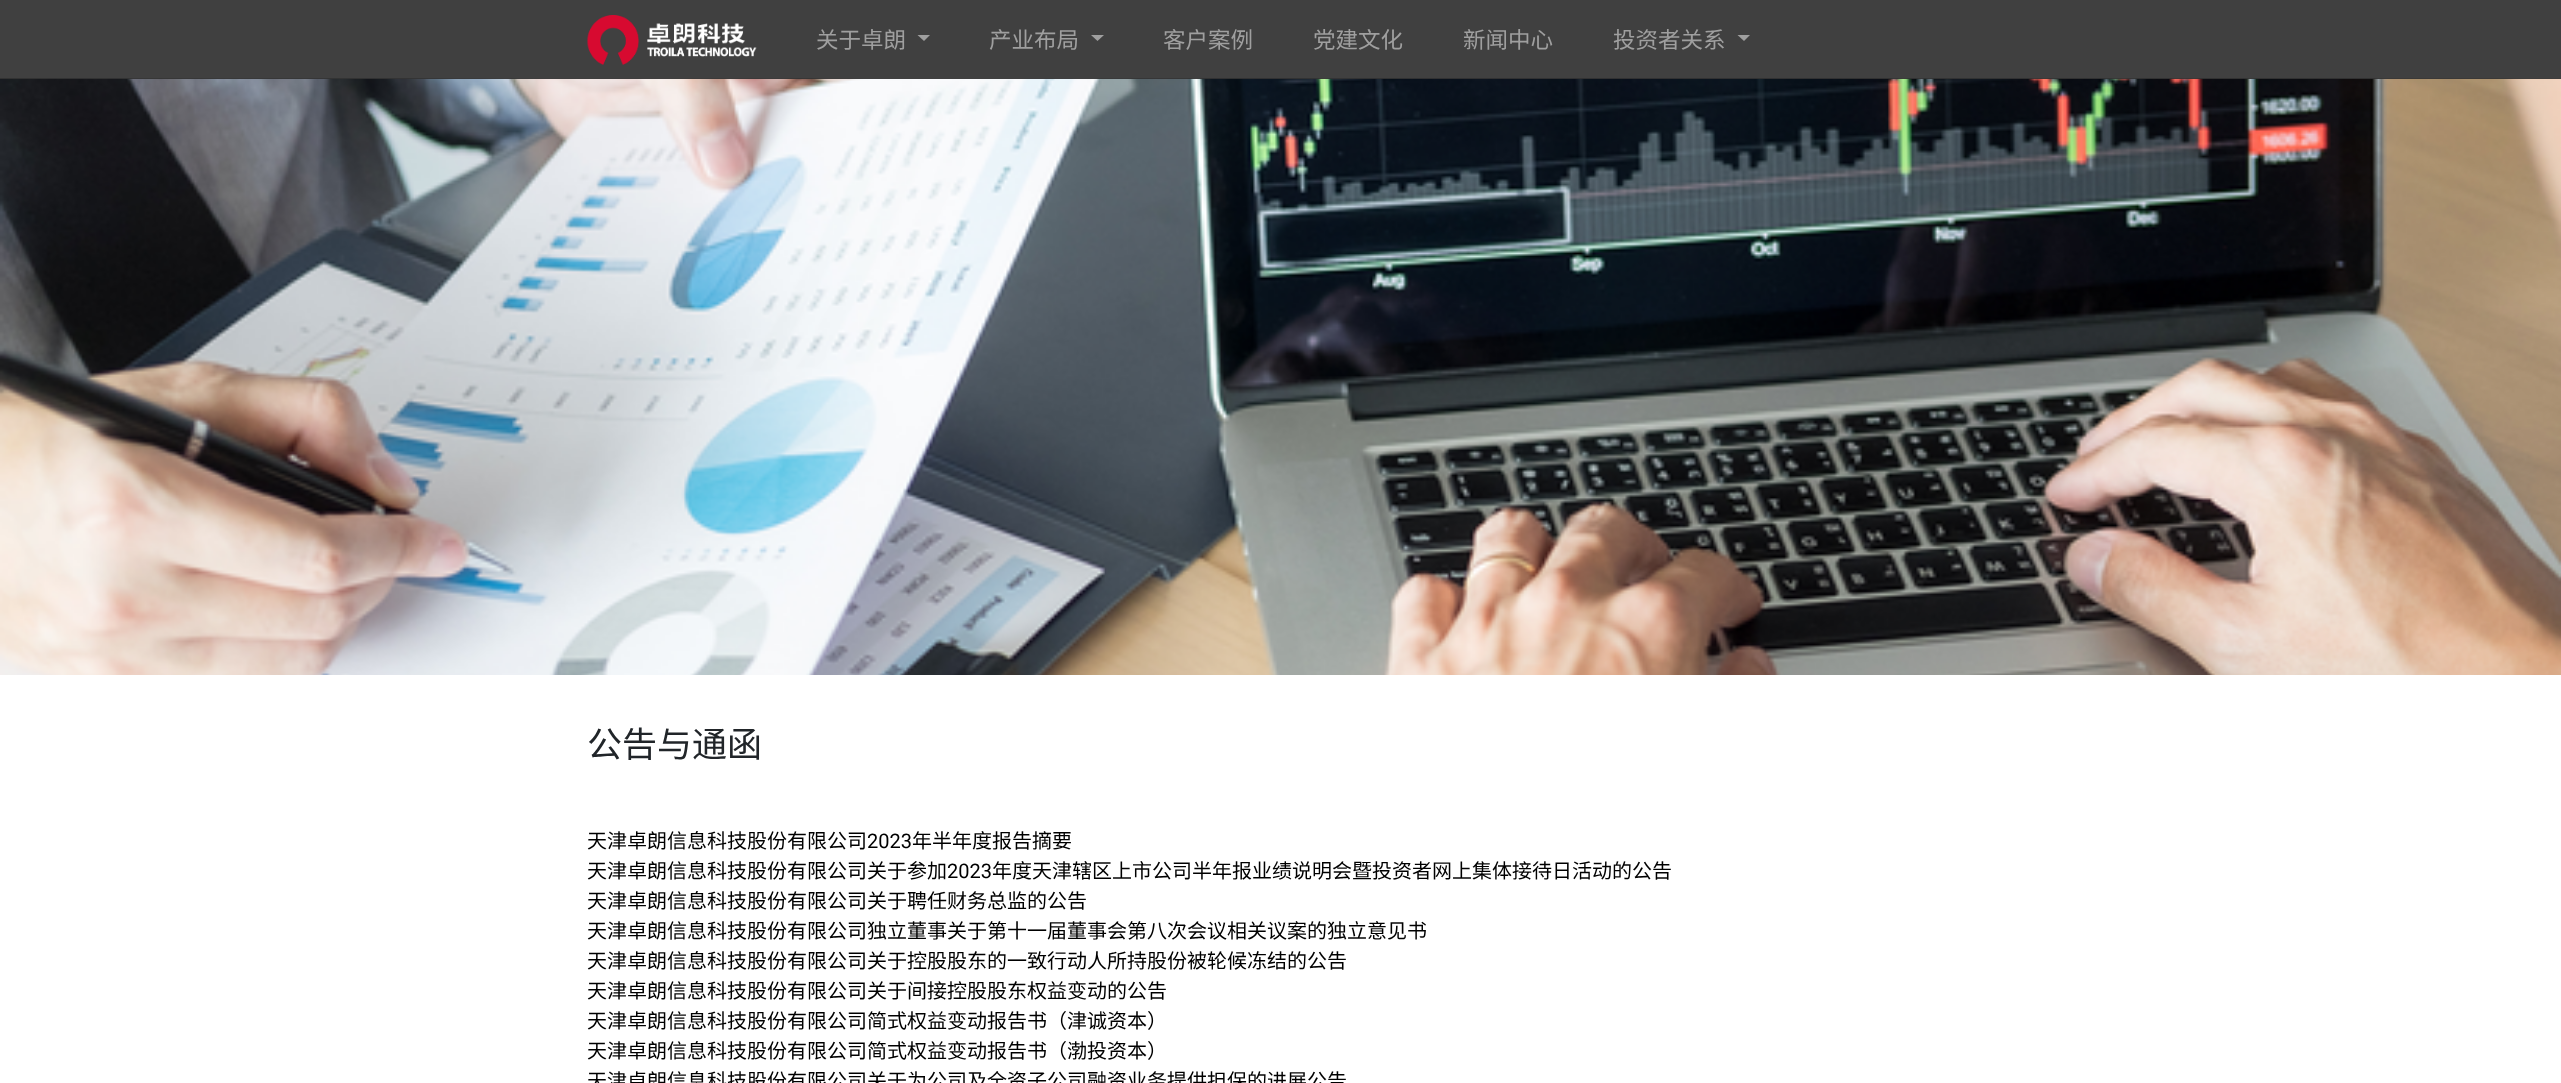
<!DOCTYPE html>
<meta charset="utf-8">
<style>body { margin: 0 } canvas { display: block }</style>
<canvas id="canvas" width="2561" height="1083"></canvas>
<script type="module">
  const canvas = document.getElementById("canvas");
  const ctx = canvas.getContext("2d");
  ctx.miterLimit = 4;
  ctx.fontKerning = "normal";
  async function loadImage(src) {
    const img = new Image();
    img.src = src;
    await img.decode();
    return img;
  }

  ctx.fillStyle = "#ffffff";
  ctx.fillRect(0, 0, 2561, 1083);
  ctx.drawImage(await loadImage("img2.png"), 0, 78, 2561, 597);
  ctx.fillStyle = "rgba(0, 0, 0, 0.75)";
  ctx.fillRect(0, 0, 2561, 79);
  ctx.drawImage(await loadImage("img1.png"), 587, 15, 170, 50);
  ctx.font = "22.5px Noto Sans CJK SC";
  ctx.fillStyle = "#9f9f9f";
  ctx.fillText("关于卓朗", 816, 48);
  ctx.beginPath();
  ctx.moveTo(917.5, 35);
  ctx.lineTo(930, 35);
  ctx.lineTo(924, 41);
  ctx.closePath();
  ctx.fill();
  ctx.fillText("产业布局", 989, 48);
  ctx.beginPath();
  ctx.moveTo(1091, 35);
  ctx.lineTo(1104, 35);
  ctx.lineTo(1097.5, 41);
  ctx.closePath();
  ctx.fill();
  ctx.fillText("客户案例", 1163, 48);
  ctx.fillText("党建文化", 1313, 48);
  ctx.fillText("新闻中心", 1463, 48);
  ctx.fillText("投资者关系", 1613, 48);
  ctx.beginPath();
  ctx.moveTo(1737.5, 35);
  ctx.lineTo(1750, 35);
  ctx.lineTo(1744, 41);
  ctx.closePath();
  ctx.fill();
  ctx.font = "35px Noto Sans CJK SC";
  ctx.fillStyle = "#212529";
  ctx.fillText("公告与通函", 587, 757);
  ctx.font = "20px Noto Sans CJK SC";
  ctx.fillStyle = "#000000";
  ctx.fillText("天津卓朗信息科技股份有限公司", 587, 848);
  ctx.font = "20px Roboto";
  ctx.fillText("2023", 867, 848);
  ctx.font = "20px Noto Sans CJK SC";
  ctx.fillText("年半年度报告摘要", 912, 848);
  ctx.fillText("天津卓朗信息科技股份有限公司关于参加", 587, 878);
  ctx.font = "20px Roboto";
  ctx.fillText("2023", 947, 878);
  ctx.font = "20px Noto Sans CJK SC";
  ctx.fillText("年度天津辖区上市公司半年报业绩说明会暨投资者网上集体接待日活动的公告", 992, 878);
  ctx.fillText("天津卓朗信息科技股份有限公司关于聘任财务总监的公告", 587, 908);
  ctx.fillText("天津卓朗信息科技股份有限公司独立董事关于第十一届董事会第八次会议相关议案的独立意见书", 587, 938);
  ctx.fillText("天津卓朗信息科技股份有限公司关于控股股东的一致行动人所持股份被轮候冻结的公告", 587, 968);
  ctx.fillText("天津卓朗信息科技股份有限公司关于间接控股股东权益变动的公告", 587, 998);
  ctx.fillText("天津卓朗信息科技股份有限公司简式权益变动报告书（津诚资本）", 587, 1028);
  ctx.fillText("天津卓朗信息科技股份有限公司简式权益变动报告书（渤投资本）", 587, 1058);
  ctx.fillText("天津卓朗信息科技股份有限公司关于为公司及全资子公司融资业务提供担保的进展公告", 587, 1088);
</script>
